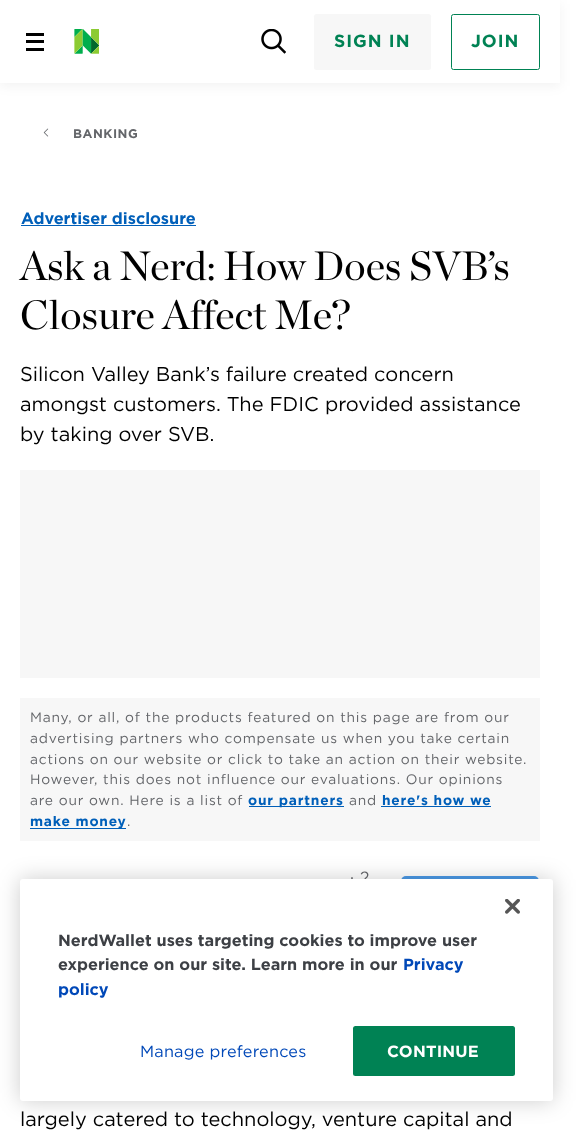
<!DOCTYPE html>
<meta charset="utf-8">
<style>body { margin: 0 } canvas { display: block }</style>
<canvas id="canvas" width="578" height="1141"></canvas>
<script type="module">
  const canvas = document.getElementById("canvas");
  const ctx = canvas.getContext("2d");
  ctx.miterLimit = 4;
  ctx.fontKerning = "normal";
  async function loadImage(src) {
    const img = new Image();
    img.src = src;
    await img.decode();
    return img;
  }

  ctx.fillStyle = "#ffffff";
  ctx.fillRect(0, 0, 578, 1141);
  ctx.fillStyle = "rgba(0, 0, 0, 0.05)";
  ctx.filter = "blur(6px)";
  ctx.beginPath();
  ctx.rect(0, 4, 560, 82);
  ctx.fill();
  ctx.filter = "none";
  ctx.fillStyle = "#ffffff";
  ctx.fillRect(0, 0, 560, 83);
  ctx.fillStyle = "#000000";
  ctx.fillRect(26, 40, 18, 3);
  ctx.fillRect(26, 33, 18, 3);
  ctx.fillRect(26, 48, 18, 3);
  ctx.drawImage(await loadImage("img1.png"), 74, 29, 25, 25);
  ctx.drawImage(await loadImage("img2.png"), 261, 29, 25, 25);
  ctx.fillStyle = "#f7f7f7";
  ctx.beginPath();
  ctx.roundRect(314, 14, 117, 56, 2.5);
  ctx.fill();
  ctx.letterSpacing = "1px";
  ctx.font = "17.5px Gotham";
  ctx.fillStyle = "#008254";
  ctx.fillText("SIGN IN", 334, 47);
  ctx.beginPath();
  ctx.roundRect(451.5, 14.5, 88, 55, 2);
  ctx.strokeStyle = "#008254";
  ctx.stroke();
  ctx.fillText("JOIN", 471, 47);
  ctx.drawImage(await loadImage("img3.png"), 43, 128, 6, 9);
  ctx.letterSpacing = "0.5px";
  ctx.font = "12.5px Gotham";
  ctx.fillStyle = "#64666a";
  ctx.fillText("BANKING", 73, 138);
  ctx.letterSpacing = "0px";
  ctx.font = "16.25px Gotham";
  ctx.fillStyle = "#005fb9";
  ctx.fillText("Advertiser disclosure", 21, 224);
  ctx.fillRect(21, 225, 175, 1);
  ctx.letterSpacing = "0.05px";
  ctx.font = "300 40.75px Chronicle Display";
  ctx.fillStyle = "#000000";
  ctx.fillText("Ask a Nerd: How Does SVB’s", 20, 280);
  ctx.fillText("Closure Affect Me?", 20, 329);
  ctx.letterSpacing = "0px";
  ctx.font = "300 20px Gotham";
  ctx.fillText("Silicon Valley Bank’s failure created concern", 20, 381);
  ctx.fillText("amongst customers. The FDIC provided assistance", 20, 411);
  ctx.fillText("by taking over SVB.", 20, 441);
  ctx.fillStyle = "#f7f7f7";
  ctx.fillRect(20, 470, 520, 208);
  ctx.fillRect(20, 698, 520, 143);
  ctx.letterSpacing = "0.8px";
  ctx.font = "300 13.75px Gotham";
  ctx.fillStyle = "#64666a";
  ctx.fillText("Many, or all, of the products featured on this page are from our", 30, 722);
  ctx.fillText("advertising partners who compensate us when you take certain", 30, 743);
  ctx.fillText("actions on our website or click to take an action on their website.", 30, 764);
  ctx.fillText("However, this does not influence our evaluations. Our opinions", 30, 784);
  ctx.fillText("are our own. Here is a list of", 30, 805);
  ctx.fillStyle = "#005fb9";
  ctx.fillRect(249, 806, 95, 1);
  ctx.font = "13.75px Gotham";
  ctx.fillText("our partners", 248, 805);
  ctx.font = "300 13.75px Gotham";
  ctx.fillStyle = "#64666a";
  ctx.fillText("and", 349, 805);
  ctx.font = "13.75px Gotham";
  ctx.fillStyle = "#005fb9";
  ctx.fillText("here's how we", 382, 805);
  ctx.fillRect(381, 806, 110, 1);
  ctx.fillRect(30, 828, 96, 1);
  ctx.fillText("make money", 30, 826);
  ctx.font = "300 13.75px Gotham";
  ctx.fillStyle = "#64666a";
  ctx.fillText(".", 127, 826);
  ctx.letterSpacing = "0.5px";
  ctx.font = "300 16.25px Gotham";
  ctx.fillText("· 2", 350, 883);
  ctx.fillStyle = "#4b99e6";
  ctx.beginPath();
  ctx.roundRect(401, 876, 138, 30, 5);
  ctx.fill();
  ctx.letterSpacing = "0px";
  ctx.font = "300 20px Gotham";
  ctx.fillStyle = "#000000";
  ctx.fillText("largely catered to technology, venture capital and", 20, 1126);
  ctx.fillStyle = "rgba(0, 0, 0, 0.2)";
  ctx.filter = "blur(11px)";
  ctx.beginPath();
  ctx.roundRect(20, 879, 533, 222, 3);
  ctx.fill();
  ctx.filter = "none";
  ctx.fillStyle = "#ffffff";
  ctx.beginPath();
  ctx.roundRect(20, 879, 533, 222, 3);
  ctx.fill();
  ctx.drawImage(await loadImage("img4.png"), 505, 899, 15, 15);
  ctx.font = "16.25px Gotham";
  ctx.fillStyle = "#3d4045";
  ctx.fillText("NerdWallet uses targeting cookies to improve user", 58, 946);
  ctx.fillText("experience on our site. Learn more in our", 58, 970);
  ctx.fillStyle = "#0048b8";
  ctx.fillText("Privacy", 403, 970);
  ctx.fillText("policy", 58, 995);
  ctx.letterSpacing = "0.2px";
  ctx.font = "300 16.25px Gotham";
  ctx.fillText("Manage preferences", 140, 1057);
  ctx.fillStyle = "#008254";
  ctx.beginPath();
  ctx.roundRect(353, 1026, 162, 50, 2.5);
  ctx.fill();
  ctx.font = "16.25px Gotham";
  ctx.fillStyle = "#ffffff";
  ctx.fillText("CONTINUE", 387, 1057);
</script>
